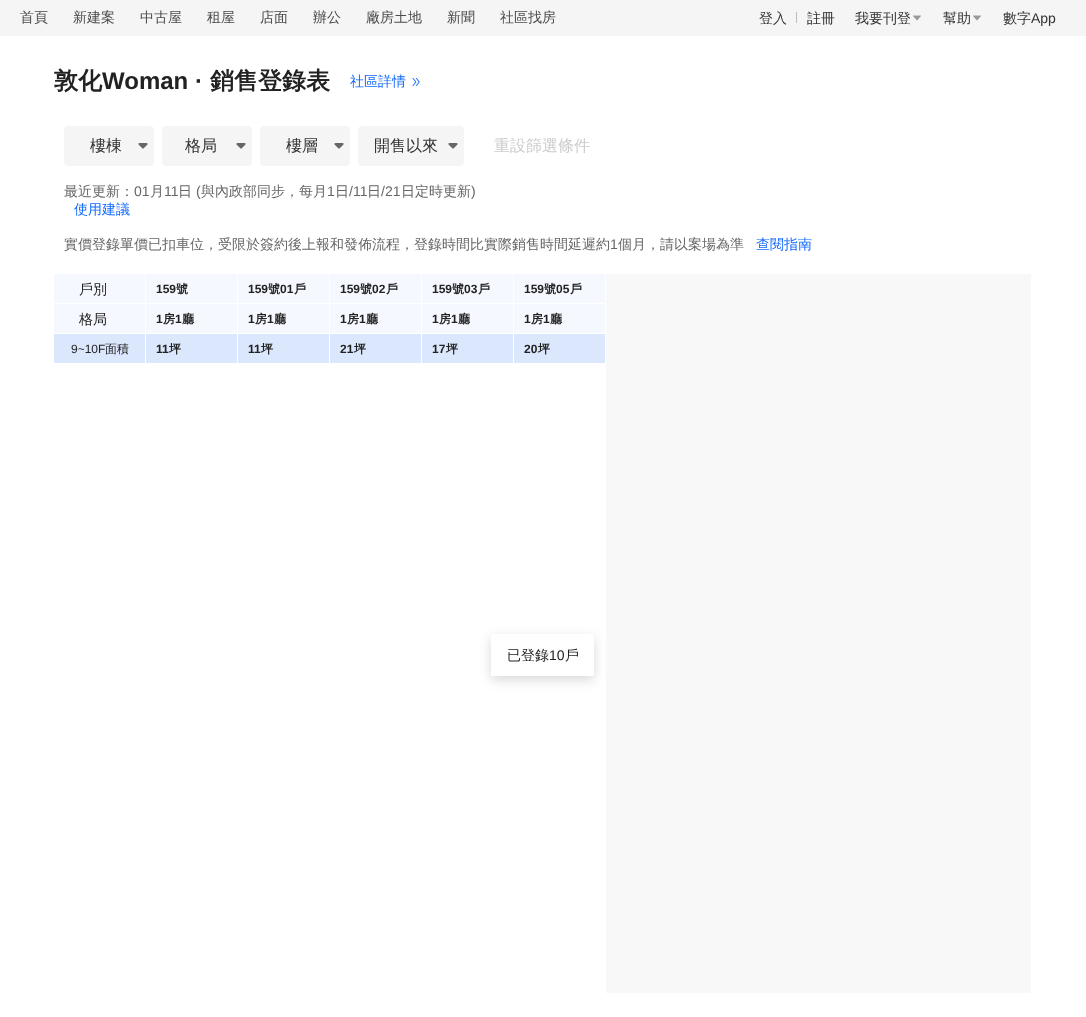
<!DOCTYPE html>
<meta charset="utf-8">
<style>body { margin: 0 } canvas { display: block }</style>
<canvas id="canvas" width="1086" height="1017"></canvas>
<script type="module">
  const canvas = document.getElementById("canvas");
  const ctx = canvas.getContext("2d");
  ctx.miterLimit = 4;
  ctx.fontKerning = "normal";
  async function loadImage(src) {
    const img = new Image();
    img.src = src;
    await img.decode();
    return img;
  }

  ctx.fillStyle = "#ffffff";
  ctx.fillRect(0, 0, 1086, 1017);
  ctx.fillStyle = "#f5f5f5";
  ctx.fillRect(0, 0, 1086, 36);
  ctx.font = "500 14px WenQuanYi Zen Hei";
  ctx.fillStyle = "#4a4a4a";
  ctx.fillText("首頁", 20, 22);
  ctx.fillText("新建案", 73, 22);
  ctx.fillText("中古屋", 140, 22);
  ctx.fillText("租屋", 207, 22);
  ctx.fillText("店面", 260, 22);
  ctx.fillText("辦公", 313, 22);
  ctx.fillText("廠房土地", 366, 22);
  ctx.fillText("新聞", 447, 22);
  ctx.fillText("社區找房", 500, 22);
  ctx.fillStyle = "#333333";
  ctx.fillText("登入", 759, 23);
  ctx.fillStyle = "#bbbbbb";
  ctx.fillRect(796, 12, 1, 11);
  ctx.fillStyle = "#333333";
  ctx.fillText("註冊", 807, 23);
  ctx.fillText("我要刊登", 855, 23);
  ctx.drawImage(await loadImage("img1.png"), 913, 15, 8, 6);
  ctx.fillText("幫助", 943, 23);
  ctx.drawImage(await loadImage("img1.png"), 973, 15, 8, 6);
  ctx.fillText("數字", 1003, 23);
  ctx.font = "14px Liberation Sans";
  ctx.fillText("App", 1031, 23);
  ctx.font = "bold 24px WenQuanYi Zen Hei";
  ctx.fillStyle = "#222222";
  ctx.fillText("敦化", 54, 89);
  ctx.font = "bold 24px Liberation Sans";
  ctx.fillText("Woman ·", 102, 89);
  ctx.font = "bold 24px WenQuanYi Zen Hei";
  ctx.fillText("銷售登錄表", 210, 89);
  ctx.font = "500 14px WenQuanYi Zen Hei";
  ctx.fillStyle = "#126aff";
  ctx.fillText("社區詳情", 350, 86);
  ctx.drawImage(await loadImage("img2.png"), 412, 78, 8, 8);
  ctx.fillStyle = "#f5f5f5";
  ctx.beginPath();
  ctx.roundRect(64, 126, 90, 40, 4);
  ctx.fill();
  ctx.font = "500 16px WenQuanYi Zen Hei";
  ctx.fillStyle = "#333333";
  ctx.fillText("樓棟", 90, 151);
  ctx.drawImage(await loadImage("img3.png"), 138, 143, 10, 6);
  ctx.fillStyle = "#f5f5f5";
  ctx.beginPath();
  ctx.roundRect(162, 126, 90, 40, 4);
  ctx.fill();
  ctx.fillStyle = "#333333";
  ctx.fillText("格局", 185, 151);
  ctx.drawImage(await loadImage("img3.png"), 236, 143, 10, 6);
  ctx.fillStyle = "#f5f5f5";
  ctx.beginPath();
  ctx.roundRect(260, 126, 90, 40, 4);
  ctx.fill();
  ctx.fillStyle = "#333333";
  ctx.fillText("樓層", 286, 151);
  ctx.drawImage(await loadImage("img3.png"), 334, 143, 10, 6);
  ctx.fillStyle = "#f5f5f5";
  ctx.beginPath();
  ctx.roundRect(358, 126, 106, 40, 4);
  ctx.fill();
  ctx.fillStyle = "#333333";
  ctx.fillText("開售以來", 374, 151);
  ctx.drawImage(await loadImage("img3.png"), 448, 143, 10, 6);
  ctx.fillStyle = "#cccccc";
  ctx.fillText("重設篩選條件", 494, 151);
  ctx.font = "500 14px WenQuanYi Zen Hei";
  ctx.fillStyle = "#666666";
  ctx.fillText("最近更新：", 64, 196);
  ctx.font = "14px Liberation Sans";
  ctx.fillText("01", 134, 196);
  ctx.font = "500 14px WenQuanYi Zen Hei";
  ctx.fillText("月", 150, 196);
  ctx.font = "14px Liberation Sans";
  ctx.fillText("11", 164, 196);
  ctx.font = "500 14px WenQuanYi Zen Hei";
  ctx.fillText("日", 178, 196);
  ctx.font = "14px Liberation Sans";
  ctx.fillText("(", 196, 196);
  ctx.font = "500 14px WenQuanYi Zen Hei";
  ctx.fillText("與內政部同步，每月", 201, 196);
  ctx.font = "14px Liberation Sans";
  ctx.fillText("1", 327, 196);
  ctx.font = "500 14px WenQuanYi Zen Hei";
  ctx.fillText("日", 335, 196);
  ctx.font = "14px Liberation Sans";
  ctx.fillText("/11", 349, 196);
  ctx.font = "500 14px WenQuanYi Zen Hei";
  ctx.fillText("日", 367, 196);
  ctx.font = "14px Liberation Sans";
  ctx.fillText("/21", 381, 196);
  ctx.font = "500 14px WenQuanYi Zen Hei";
  ctx.fillText("日定時更新", 401, 196);
  ctx.font = "14px Liberation Sans";
  ctx.fillText(")", 471, 196);
  ctx.font = "500 14px WenQuanYi Zen Hei";
  ctx.fillStyle = "#126aff";
  ctx.fillText("使用建議", 74, 214);
  ctx.fillStyle = "#666666";
  ctx.fillText("實價登錄單價已扣車位，受限於簽約後上報和發佈流程，登錄時間比實際銷售時間延遲約", 64, 249);
  ctx.font = "14px Liberation Sans";
  ctx.fillText("1", 610, 249);
  ctx.font = "500 14px WenQuanYi Zen Hei";
  ctx.fillText("個月，請以案場為準", 618, 249);
  ctx.fillStyle = "#126aff";
  ctx.fillText("查閱指南", 756, 249);
  ctx.fillStyle = "#f8f8f8";
  ctx.fillRect(606, 274, 425, 719);
  ctx.fillStyle = "#f5f8ff";
  ctx.fillRect(54, 274, 91, 29);
  ctx.fillStyle = "#222222";
  ctx.fillText("戶別", 79, 294);
  ctx.fillStyle = "#f5f8ff";
  ctx.fillRect(146, 274, 91, 29);
  ctx.font = "bold 12px Liberation Sans";
  ctx.fillStyle = "#222222";
  ctx.fillText("159", 156, 293);
  ctx.font = "bold 12px WenQuanYi Zen Hei";
  ctx.fillText("號", 176, 293);
  ctx.fillStyle = "#f5f8ff";
  ctx.fillRect(238, 274, 91, 29);
  ctx.font = "bold 12px Liberation Sans";
  ctx.fillStyle = "#222222";
  ctx.fillText("159", 248, 293);
  ctx.font = "bold 12px WenQuanYi Zen Hei";
  ctx.fillText("號", 268, 293);
  ctx.font = "bold 12px Liberation Sans";
  ctx.fillText("01", 280, 293);
  ctx.font = "bold 12px WenQuanYi Zen Hei";
  ctx.fillText("戶", 294, 293);
  ctx.fillStyle = "#f5f8ff";
  ctx.fillRect(330, 274, 91, 29);
  ctx.font = "bold 12px Liberation Sans";
  ctx.fillStyle = "#222222";
  ctx.fillText("159", 340, 293);
  ctx.font = "bold 12px WenQuanYi Zen Hei";
  ctx.fillText("號", 360, 293);
  ctx.font = "bold 12px Liberation Sans";
  ctx.fillText("02", 372, 293);
  ctx.font = "bold 12px WenQuanYi Zen Hei";
  ctx.fillText("戶", 386, 293);
  ctx.fillStyle = "#f5f8ff";
  ctx.fillRect(422, 274, 91, 29);
  ctx.font = "bold 12px Liberation Sans";
  ctx.fillStyle = "#222222";
  ctx.fillText("159", 432, 293);
  ctx.font = "bold 12px WenQuanYi Zen Hei";
  ctx.fillText("號", 452, 293);
  ctx.font = "bold 12px Liberation Sans";
  ctx.fillText("03", 464, 293);
  ctx.font = "bold 12px WenQuanYi Zen Hei";
  ctx.fillText("戶", 478, 293);
  ctx.fillStyle = "#f5f8ff";
  ctx.fillRect(514, 274, 91, 29);
  ctx.font = "bold 12px Liberation Sans";
  ctx.fillStyle = "#222222";
  ctx.fillText("159", 524, 293);
  ctx.font = "bold 12px WenQuanYi Zen Hei";
  ctx.fillText("號", 544, 293);
  ctx.font = "bold 12px Liberation Sans";
  ctx.fillText("05", 556, 293);
  ctx.font = "bold 12px WenQuanYi Zen Hei";
  ctx.fillText("戶", 570, 293);
  ctx.fillStyle = "#f5f8ff";
  ctx.fillRect(54, 304, 91, 29);
  ctx.font = "500 14px WenQuanYi Zen Hei";
  ctx.fillStyle = "#222222";
  ctx.fillText("格局", 79, 324);
  ctx.fillStyle = "#f5f8ff";
  ctx.fillRect(146, 304, 91, 29);
  ctx.font = "bold 12px Liberation Sans";
  ctx.fillStyle = "#222222";
  ctx.fillText("1", 156, 323);
  ctx.font = "bold 12px WenQuanYi Zen Hei";
  ctx.fillText("房", 163, 323);
  ctx.font = "bold 12px Liberation Sans";
  ctx.fillText("1", 175, 323);
  ctx.font = "bold 12px WenQuanYi Zen Hei";
  ctx.fillText("廳", 182, 323);
  ctx.fillStyle = "#f5f8ff";
  ctx.fillRect(238, 304, 91, 29);
  ctx.font = "bold 12px Liberation Sans";
  ctx.fillStyle = "#222222";
  ctx.fillText("1", 248, 323);
  ctx.font = "bold 12px WenQuanYi Zen Hei";
  ctx.fillText("房", 255, 323);
  ctx.font = "bold 12px Liberation Sans";
  ctx.fillText("1", 267, 323);
  ctx.font = "bold 12px WenQuanYi Zen Hei";
  ctx.fillText("廳", 274, 323);
  ctx.fillStyle = "#f5f8ff";
  ctx.fillRect(330, 304, 91, 29);
  ctx.font = "bold 12px Liberation Sans";
  ctx.fillStyle = "#222222";
  ctx.fillText("1", 340, 323);
  ctx.font = "bold 12px WenQuanYi Zen Hei";
  ctx.fillText("房", 347, 323);
  ctx.font = "bold 12px Liberation Sans";
  ctx.fillText("1", 359, 323);
  ctx.font = "bold 12px WenQuanYi Zen Hei";
  ctx.fillText("廳", 366, 323);
  ctx.fillStyle = "#f5f8ff";
  ctx.fillRect(422, 304, 91, 29);
  ctx.font = "bold 12px Liberation Sans";
  ctx.fillStyle = "#222222";
  ctx.fillText("1", 432, 323);
  ctx.font = "bold 12px WenQuanYi Zen Hei";
  ctx.fillText("房", 439, 323);
  ctx.font = "bold 12px Liberation Sans";
  ctx.fillText("1", 451, 323);
  ctx.font = "bold 12px WenQuanYi Zen Hei";
  ctx.fillText("廳", 458, 323);
  ctx.fillStyle = "#f5f8ff";
  ctx.fillRect(514, 304, 91, 29);
  ctx.font = "bold 12px Liberation Sans";
  ctx.fillStyle = "#222222";
  ctx.fillText("1", 524, 323);
  ctx.font = "bold 12px WenQuanYi Zen Hei";
  ctx.fillText("房", 531, 323);
  ctx.font = "bold 12px Liberation Sans";
  ctx.fillText("1", 543, 323);
  ctx.font = "bold 12px WenQuanYi Zen Hei";
  ctx.fillText("廳", 550, 323);
  ctx.fillStyle = "#dbe7fc";
  ctx.fillRect(54, 334, 91, 29);
  ctx.font = "12px Liberation Sans";
  ctx.fillStyle = "#222222";
  ctx.fillText("9~10F", 71, 353);
  ctx.font = "500 12px WenQuanYi Zen Hei";
  ctx.fillText("面積", 105, 353);
  ctx.fillStyle = "#dbe7fc";
  ctx.fillRect(146, 334, 91, 29);
  ctx.font = "bold 12px Liberation Sans";
  ctx.fillStyle = "#222222";
  ctx.fillText("11", 156, 353);
  ctx.font = "bold 12px WenQuanYi Zen Hei";
  ctx.fillText("坪", 169, 353);
  ctx.fillStyle = "#dbe7fc";
  ctx.fillRect(238, 334, 91, 29);
  ctx.font = "bold 12px Liberation Sans";
  ctx.fillStyle = "#222222";
  ctx.fillText("11", 248, 353);
  ctx.font = "bold 12px WenQuanYi Zen Hei";
  ctx.fillText("坪", 261, 353);
  ctx.fillStyle = "#dbe7fc";
  ctx.fillRect(330, 334, 91, 29);
  ctx.font = "bold 12px Liberation Sans";
  ctx.fillStyle = "#222222";
  ctx.fillText("21", 340, 353);
  ctx.font = "bold 12px WenQuanYi Zen Hei";
  ctx.fillText("坪", 354, 353);
  ctx.fillStyle = "#dbe7fc";
  ctx.fillRect(422, 334, 91, 29);
  ctx.font = "bold 12px Liberation Sans";
  ctx.fillStyle = "#222222";
  ctx.fillText("17", 432, 353);
  ctx.font = "bold 12px WenQuanYi Zen Hei";
  ctx.fillText("坪", 446, 353);
  ctx.fillStyle = "#dbe7fc";
  ctx.fillRect(514, 334, 91, 29);
  ctx.font = "bold 12px Liberation Sans";
  ctx.fillStyle = "#222222";
  ctx.fillText("20", 524, 353);
  ctx.font = "bold 12px WenQuanYi Zen Hei";
  ctx.fillText("坪", 538, 353);
  ctx.fillStyle = "rgba(0, 0, 0, 0.15)";
  ctx.filter = "blur(6px)";
  ctx.beginPath();
  ctx.roundRect(491, 638, 103, 42, 2);
  ctx.fill();
  ctx.filter = "none";
  ctx.fillStyle = "#ffffff";
  ctx.beginPath();
  ctx.roundRect(491, 634, 103, 42, 2);
  ctx.fill();
  ctx.font = "500 14px WenQuanYi Zen Hei";
  ctx.fillStyle = "#222222";
  ctx.fillText("已登錄", 507, 660);
  ctx.font = "14px Liberation Sans";
  ctx.fillText("10", 549, 660);
  ctx.font = "500 14px WenQuanYi Zen Hei";
  ctx.fillText("戶", 565, 660);
</script>
